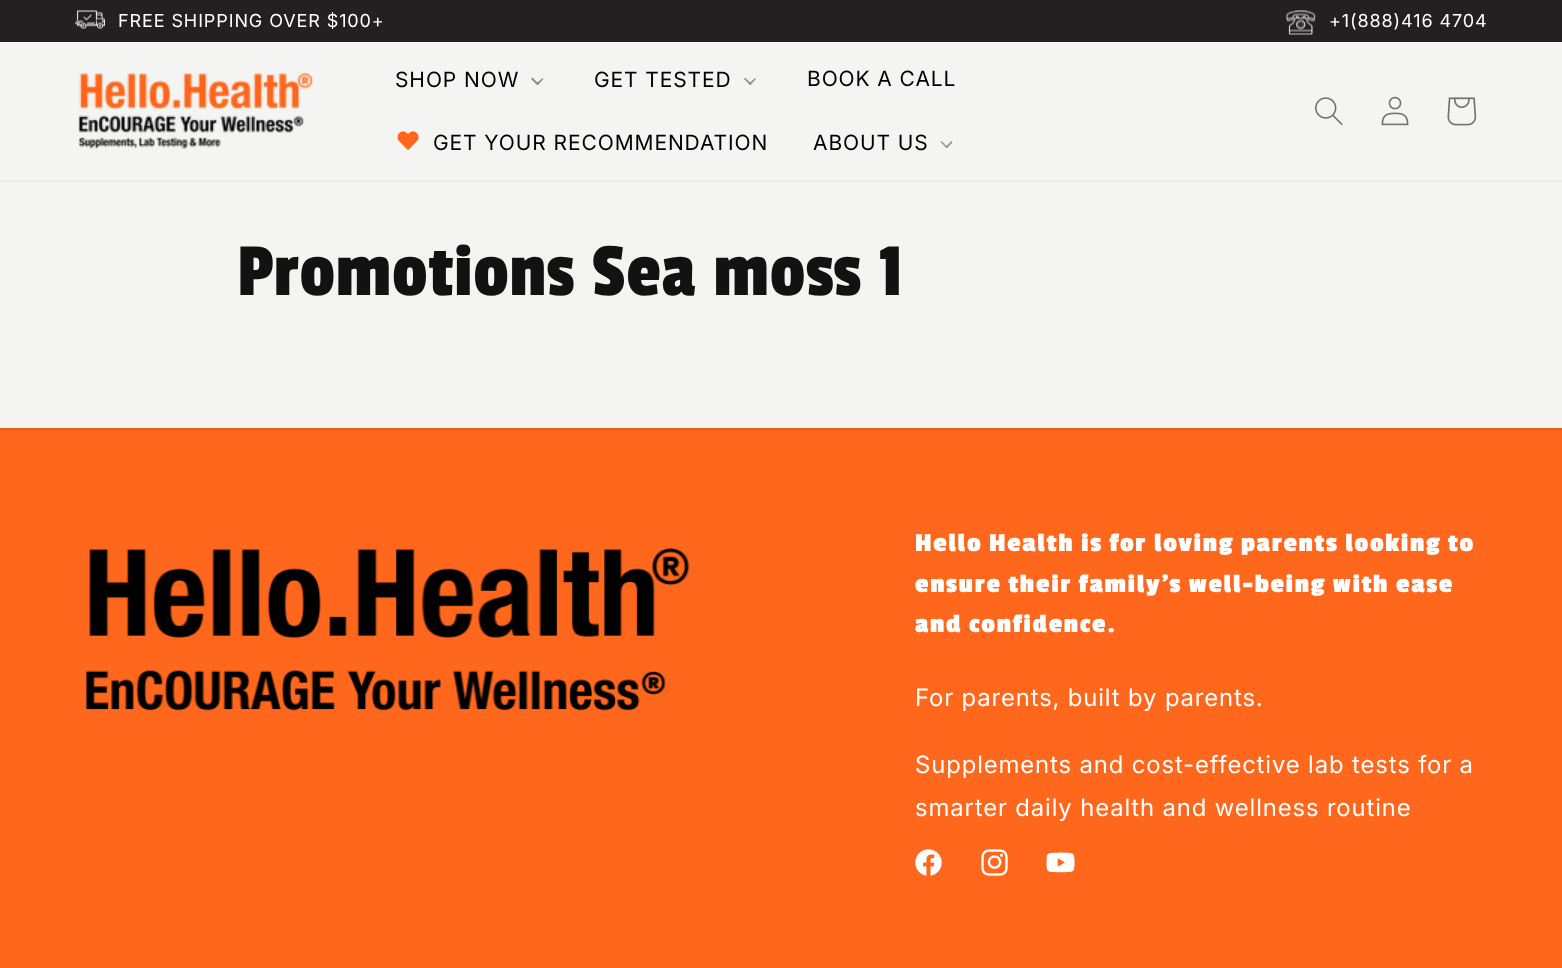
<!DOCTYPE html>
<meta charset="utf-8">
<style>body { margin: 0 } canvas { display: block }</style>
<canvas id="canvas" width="1562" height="968"></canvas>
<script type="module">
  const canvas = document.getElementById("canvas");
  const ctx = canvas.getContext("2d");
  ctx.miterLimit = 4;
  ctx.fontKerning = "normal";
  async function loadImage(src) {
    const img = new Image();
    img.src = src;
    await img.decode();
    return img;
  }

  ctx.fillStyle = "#f4f4f2";
  ctx.fillRect(0, 0, 1562, 968);
  ctx.fillStyle = "#242021";
  ctx.fillRect(0, 0, 1562, 42);
  ctx.drawImage(await loadImage("img1.png"), 75, 10, 30, 19);
  ctx.letterSpacing = "0.9px";
  ctx.font = "18px 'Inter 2'";
  ctx.fillStyle = "#ffffff";
  ctx.fillText("FREE SHIPPING OVER $100+", 118, 27);
  ctx.drawImage(await loadImage("img2.png"), 1286, 10, 30, 25);
  ctx.fillText("+1(888)416 4704", 1329, 27);
  ctx.fillStyle = "#eaeae8";
  ctx.fillRect(0, 180, 1562, 2);
  ctx.drawImage(await loadImage("img3.png"), 78, 72, 236, 77);
  ctx.font = "21px 'Inter 2'";
  ctx.fillStyle = "#000000";
  ctx.fillText("SHOP NOW", 395, 87);
  ctx.fillStyle = "#929291";
  ctx.beginPath();
  ctx.moveTo(542.5, 78);
  ctx.lineTo(543.5, 79);
  ctx.lineTo(538, 85);
  ctx.lineTo(536.5, 83.5);
  ctx.closePath();
  ctx.fill();
  ctx.fillStyle = "rgba(113, 113, 113, 0.75)";
  ctx.beginPath();
  ctx.moveTo(532.5, 77.5);
  ctx.lineTo(538.5, 83.5);
  ctx.lineTo(537, 85);
  ctx.lineTo(531, 79);
  ctx.closePath();
  ctx.fill();
  ctx.fillStyle = "#000000";
  ctx.fillText("GET TESTED", 594, 87);
  ctx.fillStyle = "#929291";
  ctx.beginPath();
  ctx.moveTo(755, 78);
  ctx.lineTo(756, 79);
  ctx.lineTo(750.5, 85);
  ctx.lineTo(749, 83.5);
  ctx.closePath();
  ctx.fill();
  ctx.fillStyle = "rgba(113, 113, 113, 0.75)";
  ctx.beginPath();
  ctx.moveTo(745, 77.5);
  ctx.lineTo(751, 83.5);
  ctx.lineTo(750, 85);
  ctx.lineTo(744, 79);
  ctx.closePath();
  ctx.fill();
  ctx.fillStyle = "#000000";
  ctx.fillText("BOOK A CALL", 807, 86);
  ctx.drawImage(await loadImage("img4.png"), 397, 131, 22, 19);
  ctx.fillText("GET YOUR RECOMMENDATION", 433, 150);
  ctx.fillText("ABOUT US", 813, 150);
  ctx.fillStyle = "#929291";
  ctx.beginPath();
  ctx.moveTo(951.5, 141);
  ctx.lineTo(952.5, 142.5);
  ctx.lineTo(947, 148);
  ctx.lineTo(945.5, 147);
  ctx.closePath();
  ctx.fill();
  ctx.fillStyle = "rgba(113, 113, 113, 0.75)";
  ctx.beginPath();
  ctx.moveTo(941.5, 141);
  ctx.lineTo(947.5, 147);
  ctx.lineTo(946.5, 148);
  ctx.lineTo(940.5, 142);
  ctx.closePath();
  ctx.fill();
  ctx.drawImage(await loadImage("img5.png"), 1315, 97, 28, 28);
  ctx.drawImage(await loadImage("img6.png"), 1381, 96, 28, 30);
  ctx.drawImage(await loadImage("img7.png"), 1447, 97, 30, 29);
  ctx.font = "78px Passion One";
  ctx.fillStyle = "#121212";
  ctx.fillText("Promotions Sea moss 1", 237, 295);
  ctx.fillStyle = "#ff671d";
  ctx.fillRect(0, 430, 1562, 538);
  ctx.fillStyle = "#ec601c";
  ctx.fillRect(0, 428, 1562, 2);
  ctx.drawImage(await loadImage("img8.png"), 85, 548, 605, 163);
  ctx.letterSpacing = "1.6px";
  ctx.font = "bold 27px Passion One";
  ctx.fillStyle = "#ffffff";
  ctx.fillText("Hello Health is for loving parents looking to", 915, 551);
  ctx.fillText("ensure their family's well-being with ease", 915, 592);
  ctx.fillText("and confidence.", 915, 632);
  ctx.letterSpacing = "0.9px";
  ctx.font = "24px Inter";
  ctx.fillText("For parents, built by parents.", 915, 706);
  ctx.fillText("Supplements and cost-effective lab tests for a", 915, 773);
  ctx.fillText("smarter daily health and wellness routine", 915, 816);
  ctx.drawImage(await loadImage("img9.png"), 915, 849, 27, 27);
  ctx.drawImage(await loadImage("img10.png"), 981, 849, 27, 27);
  ctx.drawImage(await loadImage("img11.png"), 1046, 852, 29, 21);
</script>
